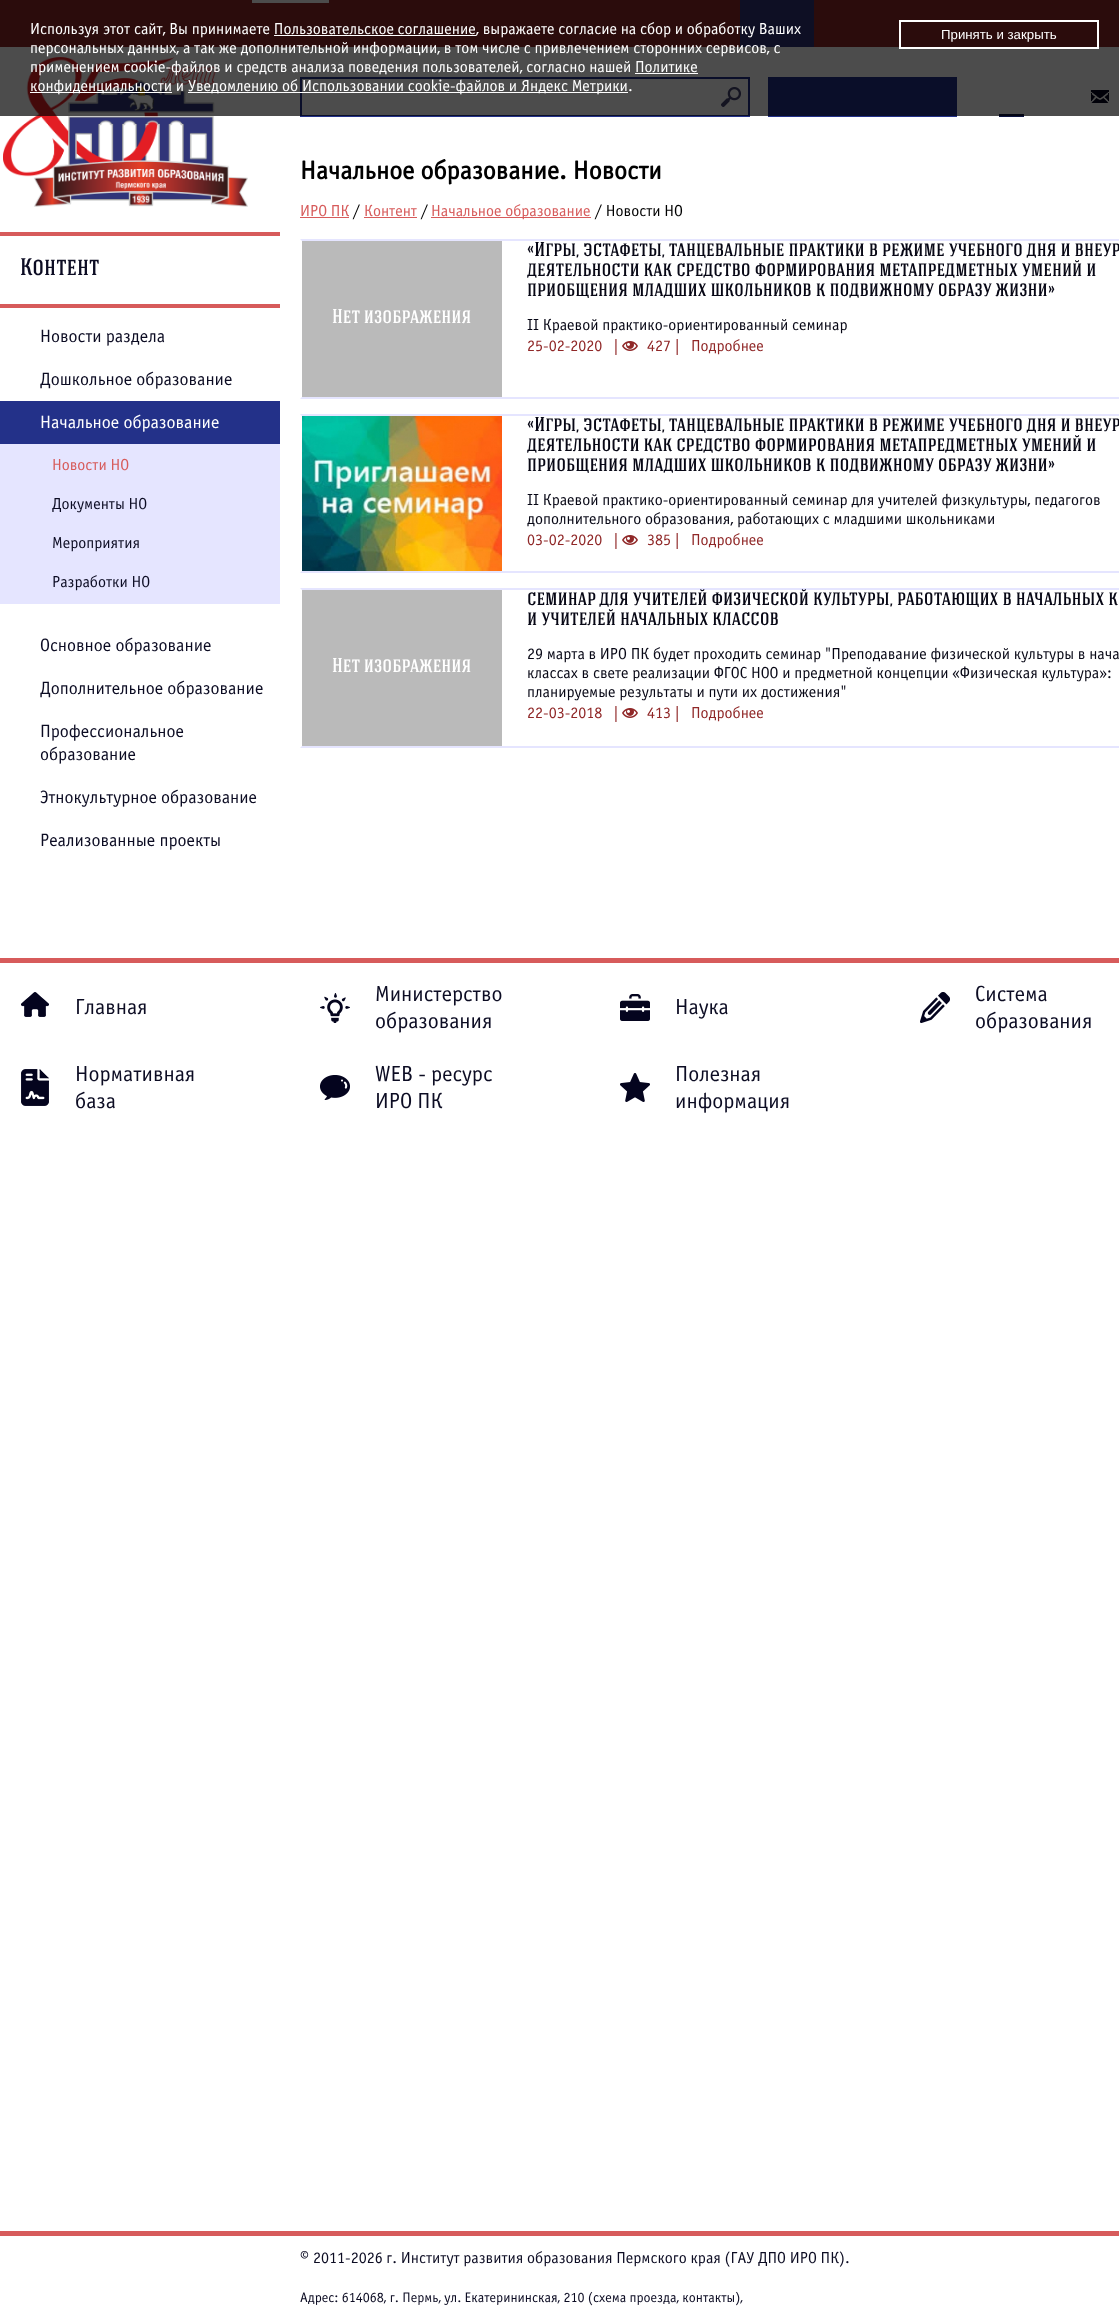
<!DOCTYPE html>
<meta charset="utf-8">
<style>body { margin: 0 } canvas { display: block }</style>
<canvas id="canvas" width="1119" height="2314"></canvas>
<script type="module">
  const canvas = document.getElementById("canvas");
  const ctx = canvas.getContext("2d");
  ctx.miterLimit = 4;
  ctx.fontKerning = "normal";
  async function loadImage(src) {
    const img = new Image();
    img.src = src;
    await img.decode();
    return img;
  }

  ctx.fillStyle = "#ffffff";
  ctx.fillRect(0, 0, 1119, 2314);
  ctx.fillStyle = "#902828";
  ctx.fillRect(0, 0, 1119, 47);
  ctx.fillStyle = "#ffffff";
  ctx.fillRect(252, 0, 77, 3);
  ctx.fillStyle = "#303579";
  ctx.fillRect(740, 0, 74, 47);
  ctx.drawImage(await loadImage("img1.png"), 3, 57, 245, 150);
  ctx.strokeStyle = "#233189";
  ctx.lineWidth = 2;
  ctx.strokeRect(301, 78, 448, 38);
  ctx.drawImage(await loadImage("img2.png"), 721, 87, 20, 20);
  ctx.fillStyle = "#233189";
  ctx.fillRect(768, 77, 189, 40);
  ctx.drawImage(await loadImage("img3.png"), 1091, 90, 18, 13);
  ctx.fillStyle = "#0b123f";
  ctx.fillRect(999, 114, 25, 3);
  ctx.fillStyle = "rgba(0, 0, 0, 0.7)";
  ctx.fillRect(0, 0, 1119, 116);
  ctx.font = "16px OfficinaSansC";
  ctx.fillStyle = "#ffffff";
  ctx.fillText("Используя этот сайт, Вы принимаете Пользовательское соглашение", 30, 34);
  ctx.fillRect(274, 35, 202, 1);
  ctx.fillText(", выражаете согласие на сбор и обработку Ваших", 476, 34);
  ctx.strokeStyle = "#ffffff";
  ctx.strokeRect(900, 21, 198, 27);
  ctx.font = "13.25px Liberation Sans";
  ctx.fillText("Принять и закрыть", 941, 39);
  ctx.font = "16px OfficinaSansC";
  ctx.fillText("персональных данных, а так же дополнительной информации, в том числе с привлечением сторонних сервисов, с", 30, 53);
  ctx.fillText("применением cookie-файлов и средств анализа поведения пользователей, согласно нашей Политике", 30, 72);
  ctx.fillRect(30, 92, 142, 1);
  ctx.fillText("конфиденциальности и", 30, 91);
  ctx.fillRect(635, 73, 63, 1);
  ctx.fillRect(188, 92, 440, 1);
  ctx.fillText("Уведомлению об Использовании cookie-файлов и Яндекс Метрики.", 188, 91);
  ctx.fillStyle = "#d75b5b";
  ctx.fillRect(0, 232, 280, 4);
  ctx.fillRect(0, 304, 280, 4);
  ctx.font = "500 24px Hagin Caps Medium";
  ctx.fillStyle = "#0c0c23";
  ctx.fillText("Контент", 20, 275);
  ctx.font = "18px OfficinaSansC";
  ctx.fillText("Новости раздела", 40, 342);
  ctx.fillText("Дошкольное образование", 40, 385);
  ctx.fillStyle = "#233189";
  ctx.fillRect(0, 401, 280, 43);
  ctx.fillStyle = "#ffffff";
  ctx.fillText("Начальное образование", 40, 428);
  ctx.fillStyle = "#e5e5ff";
  ctx.fillRect(0, 444, 280, 160);
  ctx.font = "16px OfficinaSansC";
  ctx.fillStyle = "#d75b5b";
  ctx.fillText("Новости НО", 52, 470);
  ctx.fillStyle = "#0c0c23";
  ctx.fillText("Документы НО", 52, 509);
  ctx.fillText("Мероприятия", 52, 548);
  ctx.fillText("Разработки НО", 52, 587);
  ctx.font = "18px OfficinaSansC";
  ctx.fillText("Основное образование", 40, 651);
  ctx.fillText("Дополнительное образование", 40, 694);
  ctx.fillText("Профессиональное", 40, 737);
  ctx.fillText("образование", 40, 760);
  ctx.fillText("Этнокультурное образование", 40, 803);
  ctx.fillText("Реализованные проекты", 40, 846);
  ctx.font = "bold 26px OfficinaSansC";
  ctx.fillStyle = "#000000";
  ctx.fillText("Начальное образование. Новости", 300, 179);
  ctx.font = "16px OfficinaSansC";
  ctx.fillStyle = "#d75b5b";
  ctx.fillText("ИРО ПК", 300, 216);
  ctx.fillRect(300, 217, 49, 1);
  ctx.fillStyle = "#000000";
  ctx.fillText("/", 353, 216);
  ctx.fillStyle = "#d75b5b";
  ctx.fillText("Контент", 364, 216);
  ctx.fillRect(364, 217, 53, 1);
  ctx.fillStyle = "#000000";
  ctx.fillText("/", 421, 216);
  ctx.fillStyle = "#d75b5b";
  ctx.fillRect(431, 217, 160, 1);
  ctx.fillText("Начальное образование", 431, 216);
  ctx.fillStyle = "#000000";
  ctx.fillText("/ Новости НО", 595, 216);
  ctx.fillStyle = "#e5e5ff";
  ctx.beginPath();
  ctx.moveTo(300, 239);
  ctx.lineTo(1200, 239);
  ctx.lineTo(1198, 241);
  ctx.lineTo(302, 241);
  ctx.closePath();
  ctx.fill();
  ctx.beginPath();
  ctx.moveTo(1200, 399);
  ctx.lineTo(300, 399);
  ctx.lineTo(302, 397);
  ctx.lineTo(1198, 397);
  ctx.closePath();
  ctx.fill();
  ctx.font = "500 20px Hagin Caps Medium";
  ctx.fillStyle = "#070715";
  ctx.fillText("«Игры, эстафеты, танцевальные практики в режиме учебного дня и внеур", 527, 256);
  ctx.fillText("деятельности как средство формирования метапредметных умений и", 527, 276);
  ctx.fillText("приобщения младших школьников к подвижному образу жизни»", 527, 296);
  ctx.fillStyle = "#bababa";
  ctx.fillRect(302, 241, 200, 156);
  ctx.fillStyle = "#ffffff";
  ctx.fillText("Нет изображения", 332, 323);
  ctx.font = "16px OfficinaSansC";
  ctx.fillStyle = "#070715";
  ctx.fillText("II Краевой практико-ориентированный семинар", 527, 330);
  ctx.fillStyle = "#902828";
  ctx.fillText("25-02-2020   |", 527, 351);
  ctx.drawImage(await loadImage("img4.png"), 622, 341, 16, 10);
  ctx.fillText("427 |", 647, 351);
  ctx.fillText("Подробнее", 691, 351);
  ctx.fillStyle = "#e5e5ff";
  ctx.beginPath();
  ctx.moveTo(300, 414);
  ctx.lineTo(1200, 414);
  ctx.lineTo(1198, 416);
  ctx.lineTo(302, 416);
  ctx.closePath();
  ctx.fill();
  ctx.beginPath();
  ctx.moveTo(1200, 573);
  ctx.lineTo(300, 573);
  ctx.lineTo(302, 571);
  ctx.lineTo(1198, 571);
  ctx.closePath();
  ctx.fill();
  ctx.drawImage(await loadImage("img5.png"), 302, 416, 200, 155);
  ctx.font = "500 20px Hagin Caps Medium";
  ctx.fillStyle = "#070715";
  ctx.fillText("«Игры, эстафеты, танцевальные практики в режиме учебного дня и внеур", 527, 431);
  ctx.fillText("деятельности как средство формирования метапредметных умений и", 527, 451);
  ctx.fillText("приобщения младших школьников к подвижному образу жизни»", 527, 471);
  ctx.font = "16px OfficinaSansC";
  ctx.fillText("II Краевой практико-ориентированный семинар для учителей физкультуры, педагогов", 527, 505);
  ctx.fillText("дополнительного образования, работающих с младшими школьниками", 527, 524);
  ctx.fillStyle = "#902828";
  ctx.fillText("03-02-2020   |", 527, 545);
  ctx.drawImage(await loadImage("img4.png"), 622, 535, 16, 10);
  ctx.fillText("385 |", 647, 545);
  ctx.fillText("Подробнее", 691, 545);
  ctx.fillStyle = "#e5e5ff";
  ctx.beginPath();
  ctx.moveTo(300, 588);
  ctx.lineTo(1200, 588);
  ctx.lineTo(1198, 590);
  ctx.lineTo(302, 590);
  ctx.closePath();
  ctx.fill();
  ctx.beginPath();
  ctx.moveTo(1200, 748);
  ctx.lineTo(300, 748);
  ctx.lineTo(302, 746);
  ctx.lineTo(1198, 746);
  ctx.closePath();
  ctx.fill();
  ctx.font = "500 20px Hagin Caps Medium";
  ctx.fillStyle = "#070715";
  ctx.fillText("семинар для учителей физической культуры, работающих в начальных к", 527, 605);
  ctx.fillText("и учителей начальных классов", 527, 625);
  ctx.font = "16px OfficinaSansC";
  ctx.fillText("29 марта в ИРО ПК будет проходить семинар \"Преподавание физической культуры в нача", 527, 659);
  ctx.fillStyle = "#bababa";
  ctx.fillRect(302, 590, 200, 156);
  ctx.font = "500 20px Hagin Caps Medium";
  ctx.fillStyle = "#ffffff";
  ctx.fillText("Нет изображения", 332, 672);
  ctx.font = "16px OfficinaSansC";
  ctx.fillStyle = "#070715";
  ctx.fillText("классах в свете реализации ФГОС НОО и предметной концепции «Физическая культура»:", 527, 678);
  ctx.fillText("планируемые результаты и пути их достижения\"", 527, 697);
  ctx.fillStyle = "#902828";
  ctx.fillText("22-03-2018   |", 527, 718);
  ctx.drawImage(await loadImage("img4.png"), 622, 708, 16, 10);
  ctx.fillText("413 |", 647, 718);
  ctx.fillText("Подробнее", 691, 718);
  ctx.fillStyle = "#d75b5b";
  ctx.fillRect(0, 958, 1119, 5);
  ctx.drawImage(await loadImage("img6.png"), 21, 992, 28, 25);
  ctx.font = "22px OfficinaSansC";
  ctx.fillStyle = "#0c0c23";
  ctx.fillText("Главная", 75, 1014);
  ctx.drawImage(await loadImage("img7.png"), 320, 993, 30, 30);
  ctx.fillText("Министерство", 375, 1001);
  ctx.fillText("образования", 375, 1028);
  ctx.drawImage(await loadImage("img8.png"), 620, 994, 30, 27);
  ctx.fillText("Наука", 675, 1014);
  ctx.drawImage(await loadImage("img9.png"), 920, 992, 30, 31);
  ctx.fillText("Система", 975, 1001);
  ctx.fillText("образования", 975, 1028);
  ctx.drawImage(await loadImage("img10.png"), 21, 1069, 28, 37);
  ctx.fillText("Нормативная", 75, 1081);
  ctx.fillText("база", 75, 1108);
  ctx.drawImage(await loadImage("img11.png"), 320, 1075, 30, 25);
  ctx.fillText("WEB - ресурс", 375, 1081);
  ctx.fillText("ИРО ПК", 375, 1108);
  ctx.drawImage(await loadImage("img12.png"), 620, 1073, 30, 29);
  ctx.fillText("Полезная", 675, 1081);
  ctx.fillText("информация", 675, 1108);
  ctx.fillStyle = "#d75b5b";
  ctx.fillRect(0, 2231, 1119, 5);
  ctx.font = "18px OfficinaSansC";
  ctx.fillStyle = "#0c0c23";
  ctx.fillText("©", 300, 2263);
  ctx.font = "16px OfficinaSansC";
  ctx.fillText("2011-2026 г. Институт развития образования Пермского края (ГАУ ДПО ИРО ПК).", 313, 2263);
  ctx.font = "14px OfficinaSansC";
  ctx.fillText("Адрес: 614068, г. Пермь, ул. Екатерининская, 210 (схема проезда, контакты),", 300, 2302);
</script>
